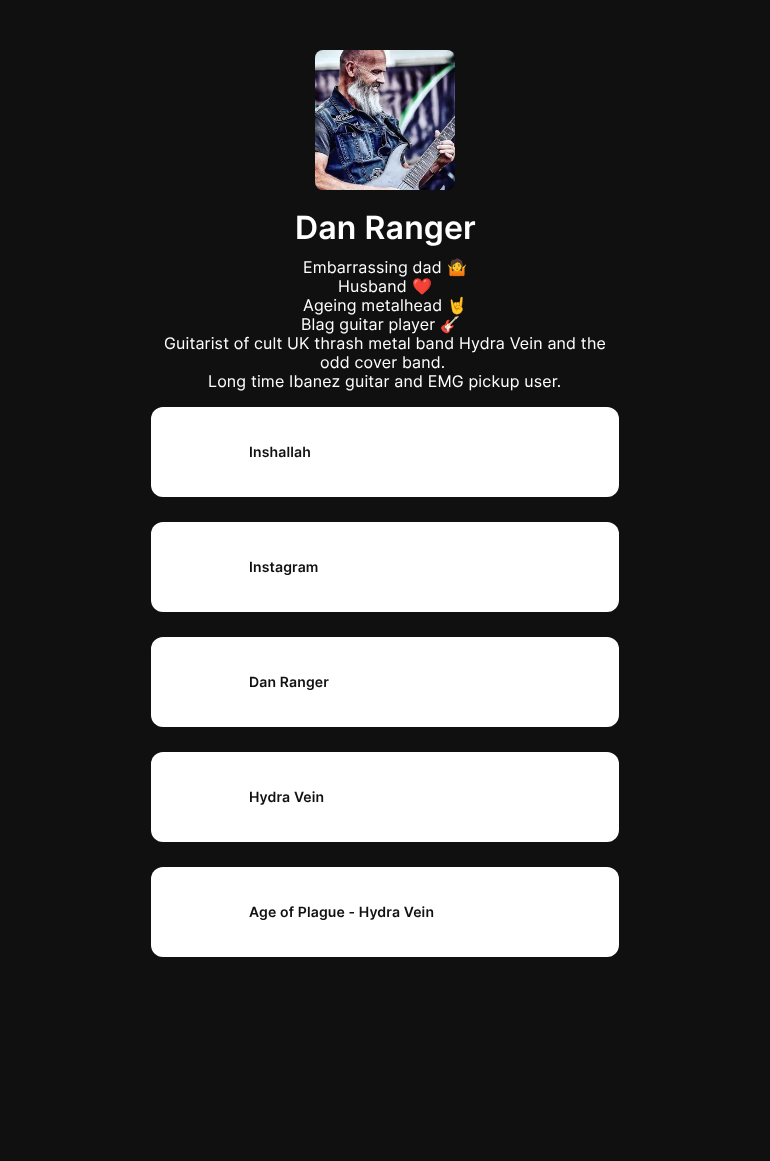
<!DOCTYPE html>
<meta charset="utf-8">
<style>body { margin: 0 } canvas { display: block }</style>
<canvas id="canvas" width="770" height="1161"></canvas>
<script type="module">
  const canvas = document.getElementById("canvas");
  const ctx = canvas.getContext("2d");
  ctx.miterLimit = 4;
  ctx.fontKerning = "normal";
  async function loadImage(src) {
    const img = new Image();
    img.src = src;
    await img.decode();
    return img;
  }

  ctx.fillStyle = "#101010";
  ctx.fillRect(0, 0, 770, 1161);
  ctx.drawImage(await loadImage("img1.png"), 315, 50, 140, 140);
  ctx.letterSpacing = "0.15px";
  ctx.font = "600 32px Inter";
  ctx.fillStyle = "#ffffff";
  ctx.fillText("Dan Ranger", 295, 239);
  ctx.font = "16px Inter";
  ctx.fillText("Embarrassing dad", 303, 273);
  ctx.font = "16px Noto Color Emoji";
  ctx.fillText("🤷", 447, 273);
  ctx.font = "16px Inter";
  ctx.fillText("Husband", 338, 292);
  ctx.font = "16px Noto Color Emoji";
  ctx.fillText("❤️", 412, 292);
  ctx.font = "16px Inter";
  ctx.fillText("Ageing metalhead", 303, 311);
  ctx.font = "16px Noto Color Emoji";
  ctx.fillText("🤘", 447, 311);
  ctx.font = "16px Inter";
  ctx.fillText("Blag guitar player", 301, 330);
  ctx.font = "16px Noto Color Emoji";
  ctx.fillText("🎸", 440, 330);
  ctx.font = "16px Inter";
  ctx.fillText("Guitarist of cult UK thrash metal band Hydra Vein and the", 164, 349);
  ctx.fillText("odd cover band.", 320, 368);
  ctx.fillText("Long time Ibanez guitar and EMG pickup user.", 208, 387);
  ctx.beginPath();
  ctx.roundRect(151, 407, 468, 90, 12);
  ctx.fill();
  ctx.font = "600 14px Inter";
  ctx.fillStyle = "#111111";
  ctx.fillText("Inshallah", 249, 457);
  ctx.fillStyle = "#ffffff";
  ctx.beginPath();
  ctx.roundRect(151, 522, 468, 90, 12);
  ctx.fill();
  ctx.fillStyle = "#111111";
  ctx.fillText("Instagram", 249, 572);
  ctx.fillStyle = "#ffffff";
  ctx.beginPath();
  ctx.roundRect(151, 637, 468, 90, 12);
  ctx.fill();
  ctx.fillStyle = "#111111";
  ctx.fillText("Dan Ranger", 249, 687);
  ctx.fillStyle = "#ffffff";
  ctx.beginPath();
  ctx.roundRect(151, 752, 468, 90, 12);
  ctx.fill();
  ctx.fillStyle = "#111111";
  ctx.fillText("Hydra Vein", 249, 802);
  ctx.fillStyle = "#ffffff";
  ctx.beginPath();
  ctx.roundRect(151, 867, 468, 90, 12);
  ctx.fill();
  ctx.fillStyle = "#111111";
  ctx.fillText("Age of Plague - Hydra Vein", 249, 917);
</script>
